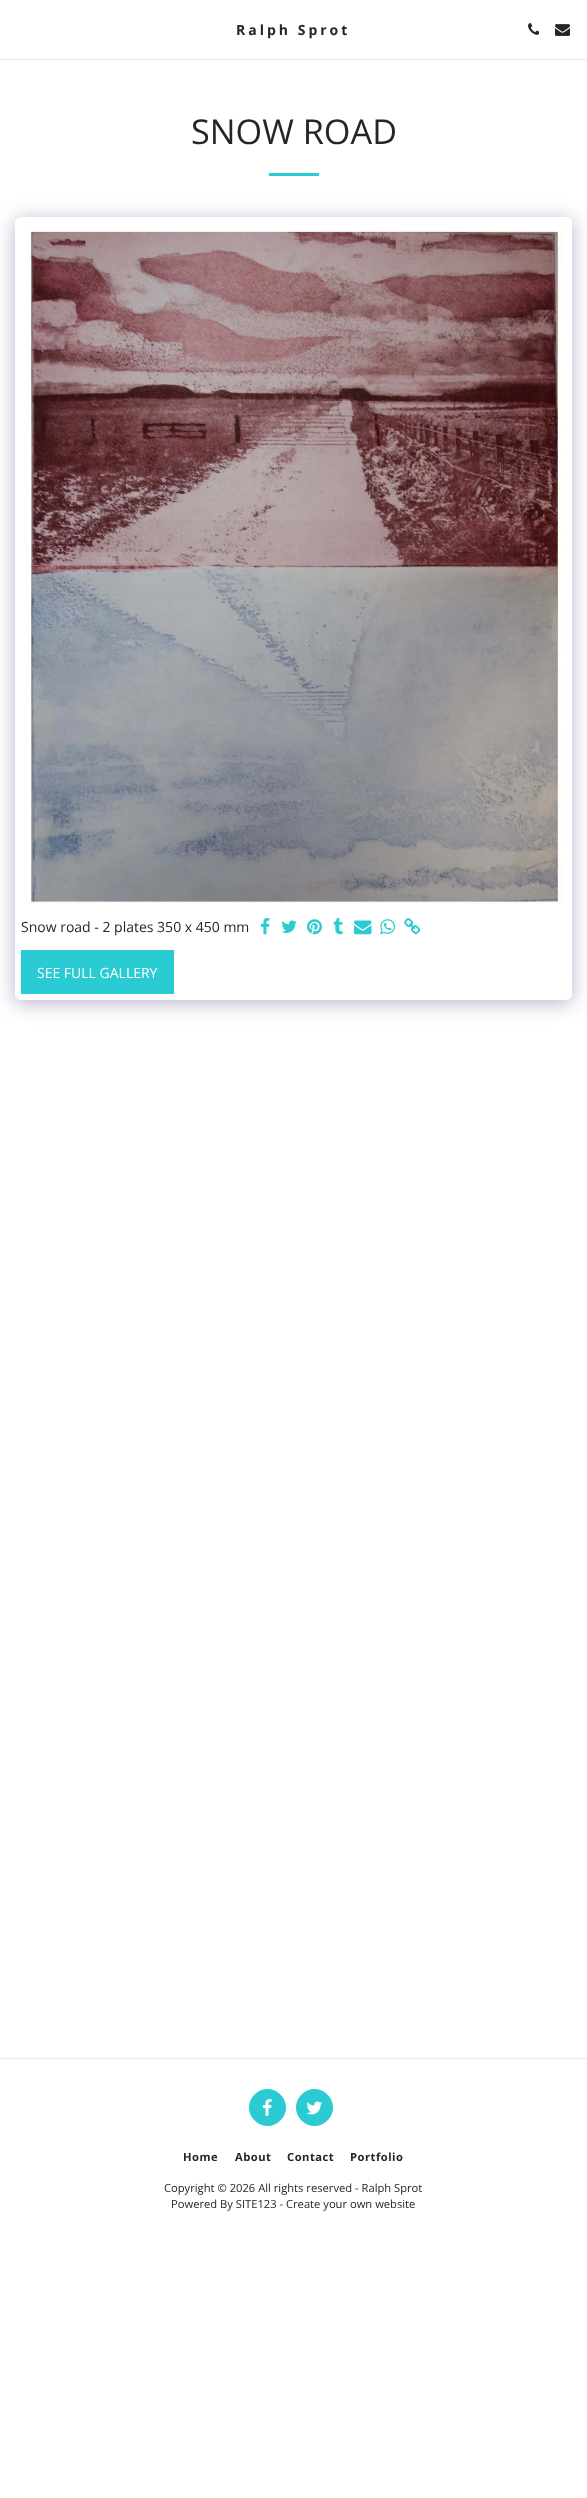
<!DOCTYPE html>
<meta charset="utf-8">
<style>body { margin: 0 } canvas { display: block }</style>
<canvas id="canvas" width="587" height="2498"></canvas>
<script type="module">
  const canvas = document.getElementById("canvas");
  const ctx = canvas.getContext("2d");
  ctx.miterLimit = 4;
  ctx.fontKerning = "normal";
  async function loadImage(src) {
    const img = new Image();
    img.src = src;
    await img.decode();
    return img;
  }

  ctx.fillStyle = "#ffffff";
  ctx.fillRect(0, 0, 587, 2498);
  ctx.fillStyle = "#ebebeb";
  ctx.fillRect(0, 59, 587, 1);
  ctx.letterSpacing = "3px";
  ctx.font = "bold 14px Open Sans";
  ctx.fillStyle = "#252525";
  ctx.fillText("Ralph Sprot", 236, 35);
  ctx.drawImage(await loadImage("img1.png"), 528, 23, 11, 12);
  ctx.drawImage(await loadImage("img2.png"), 555, 24, 15, 12);
  ctx.letterSpacing = "0px";
  ctx.font = "34.25px Open Sans";
  ctx.fillText("SNOW ROAD", 191, 144);
  ctx.fillStyle = "#2acbd2";
  ctx.fillRect(269, 173, 50, 3);
  ctx.fillStyle = "rgba(77, 63, 122, 0.4)";
  ctx.filter = "blur(10px)";
  ctx.beginPath();
  ctx.roundRect(15, 220, 557, 783, 6);
  ctx.fill();
  ctx.filter = "none";
  ctx.fillStyle = "#ffffff";
  ctx.beginPath();
  ctx.roundRect(15, 217, 557, 783, 6);
  ctx.fill();
  ctx.drawImage(await loadImage("img3.png"), 29, 230, 534, 674);
  ctx.font = "14px Open Sans";
  ctx.fillStyle = "#252525";
  ctx.fillText("Snow road - 2 plates 350 x 450 mm", 21, 932);
  ctx.drawImage(await loadImage("img4.png"), 260, 918, 10, 17);
  ctx.drawImage(await loadImage("img5.png"), 281, 920, 16, 13);
  ctx.drawImage(await loadImage("img6.png"), 307, 919, 15, 16);
  ctx.drawImage(await loadImage("img7.png"), 333, 918, 10, 17);
  ctx.drawImage(await loadImage("img8.png"), 354, 920, 18, 15);
  ctx.drawImage(await loadImage("img9.png"), 380, 919, 15, 16);
  ctx.drawImage(await loadImage("img10.png"), 404, 918, 16, 17);
  ctx.fillStyle = "#2acbd2";
  ctx.fillRect(21, 950, 153, 44);
  ctx.fillStyle = "#ffffff";
  ctx.fillText("SEE FULL GALLERY", 37, 978);
  ctx.fillStyle = "#ebebeb";
  ctx.fillRect(0, 2058, 587, 1);
  ctx.fillStyle = "#2acbd2";
  ctx.beginPath();
  ctx.arc(267.5, 2107.5, 18, 0, Math.PI * 2);
  ctx.fill();
  ctx.strokeStyle = "#2acbd2";
  ctx.stroke();
  ctx.drawImage(await loadImage("img11.png"), 262, 2099, 10, 17);
  ctx.beginPath();
  ctx.arc(314.5, 2107.5, 18, 0, Math.PI * 2);
  ctx.fill();
  ctx.stroke();
  ctx.drawImage(await loadImage("img12.png"), 306, 2101, 17, 14);
  ctx.letterSpacing = "0.5px";
  ctx.font = "bold 11.2px Open Sans";
  ctx.fillStyle = "#252525";
  ctx.fillText("Home", 183, 2161);
  ctx.fillText("About", 235, 2161);
  ctx.fillText("Contact", 287, 2161);
  ctx.fillText("Portfolio", 350, 2161);
  ctx.letterSpacing = "0px";
  ctx.font = "11.2px Open Sans";
  ctx.fillText("Copyright © 2026 All rights reserved - Ralph Sprot", 164, 2192);
  ctx.fillText("Powered By SITE123 - Create your own website", 171, 2208);
</script>
